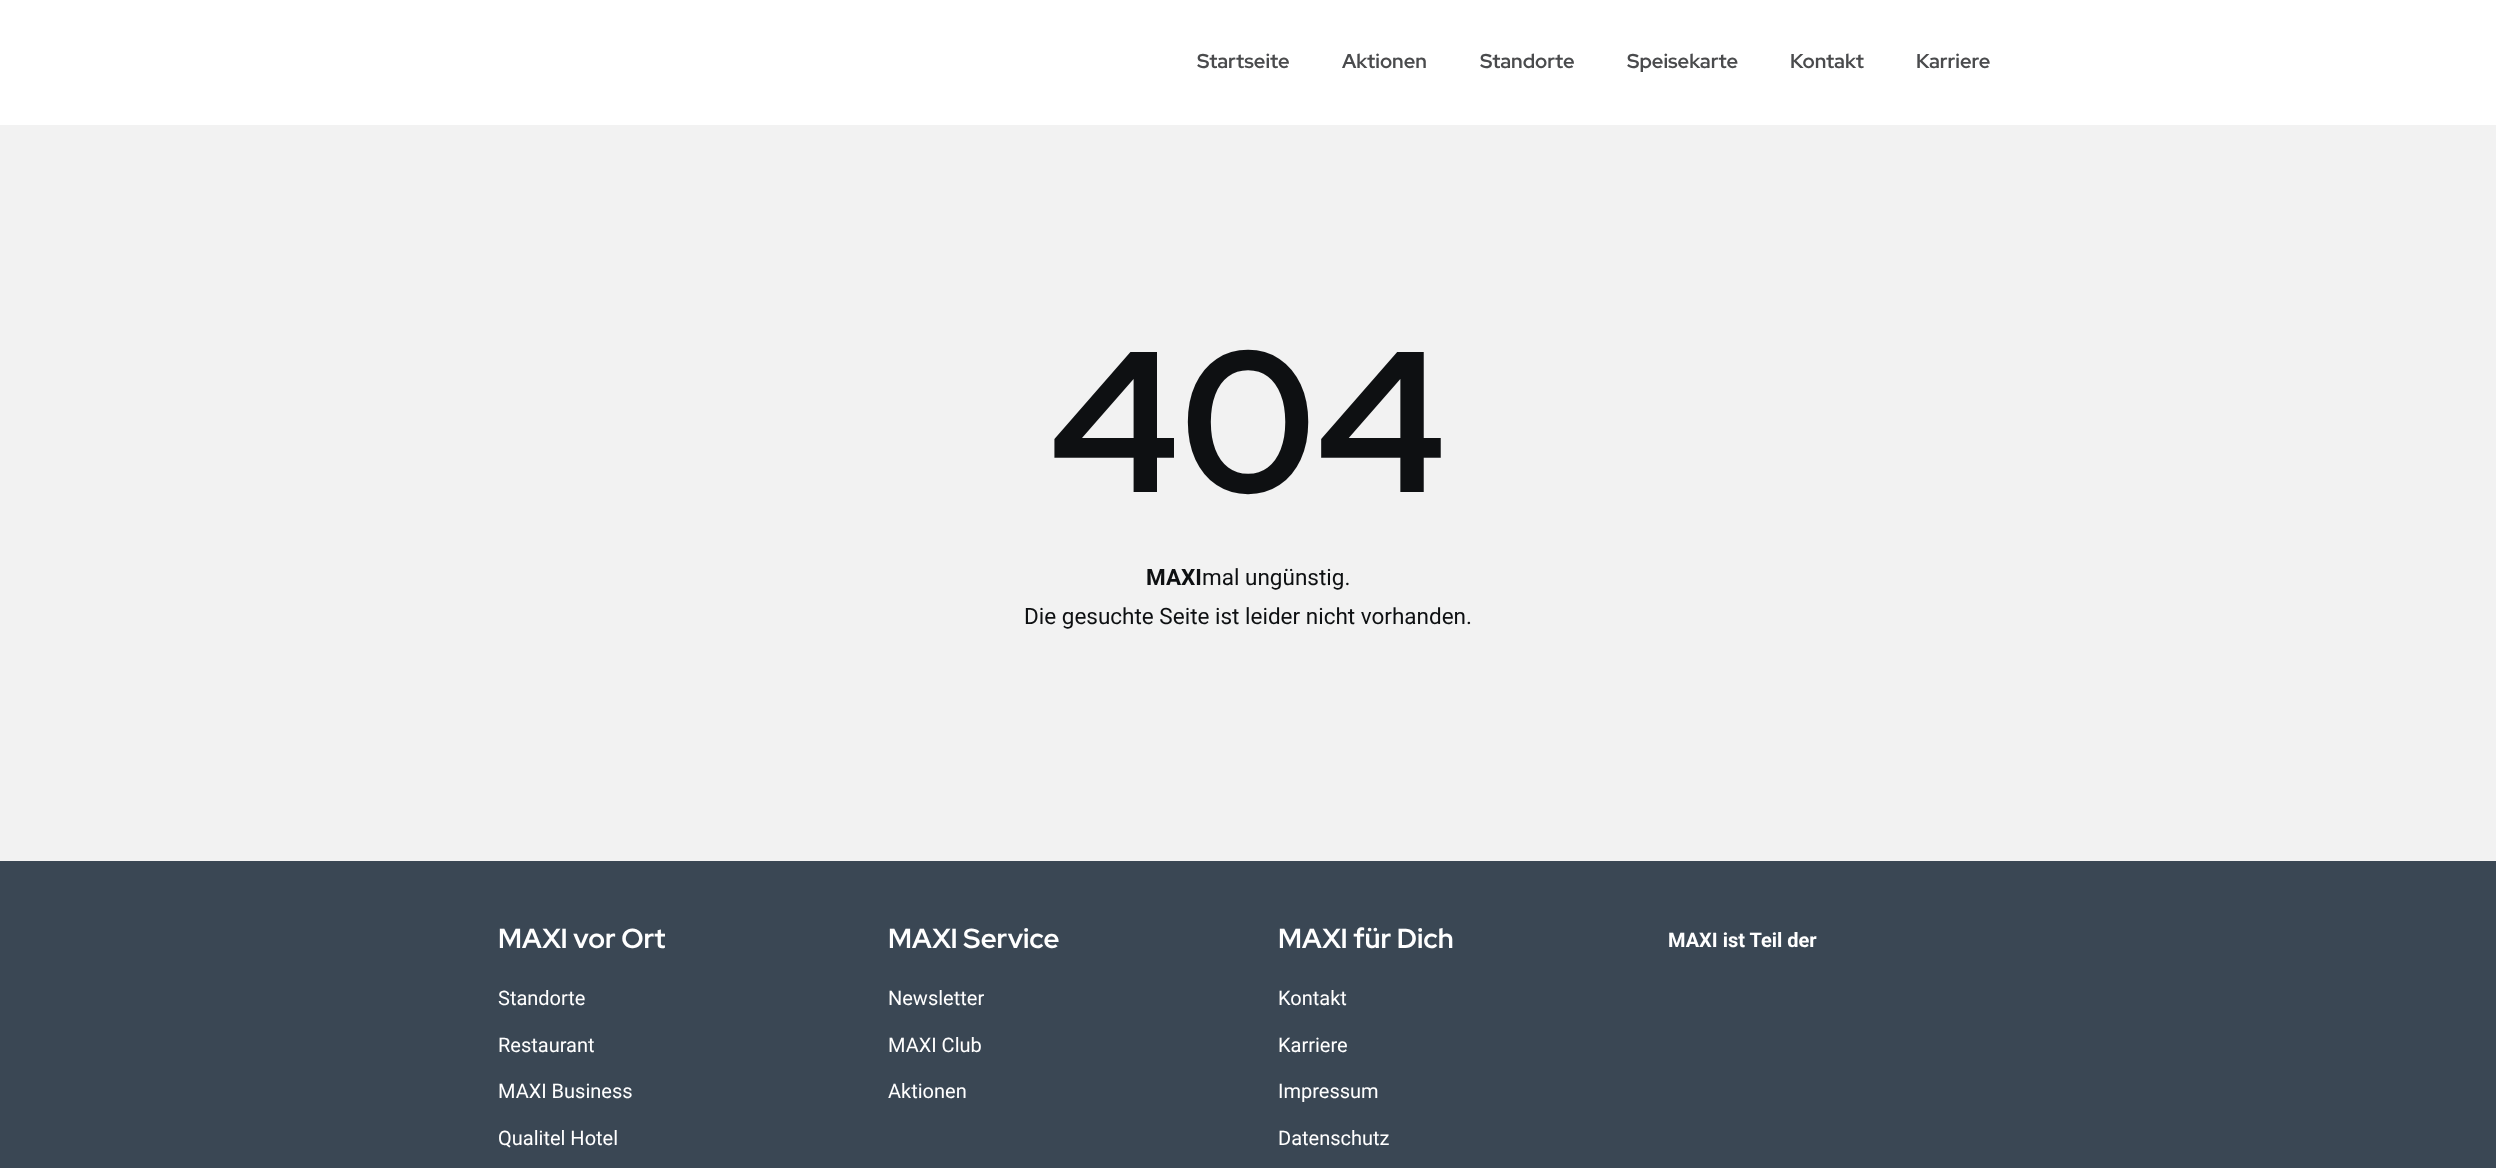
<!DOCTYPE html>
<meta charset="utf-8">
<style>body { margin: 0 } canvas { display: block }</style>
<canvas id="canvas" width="2496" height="1168"></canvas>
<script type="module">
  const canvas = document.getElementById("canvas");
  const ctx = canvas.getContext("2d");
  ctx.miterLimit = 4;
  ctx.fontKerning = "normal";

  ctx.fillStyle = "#ffffff";
  ctx.fillRect(0, 0, 2496, 1168);
  ctx.font = "bold 20px Red Hat Display";
  ctx.fillStyle = "#4a4b4d";
  ctx.fillText("Startseite", 1197, 68);
  ctx.fillText("Aktionen", 1342, 68);
  ctx.fillText("Standorte", 1480, 68);
  ctx.fillText("Speisekarte", 1627, 68);
  ctx.fillText("Kontakt", 1790, 68);
  ctx.fillText("Karriere", 1916, 68);
  ctx.fillStyle = "#f2f2f2";
  ctx.fillRect(0, 125, 2496, 736);
  ctx.font = "bold 200px Red Hat Display";
  ctx.fillStyle = "#0e1012";
  ctx.fillText("404", 1049, 492);
  ctx.font = "bold 22.5px Roboto";
  ctx.fillText("MAXI", 1146, 585);
  ctx.font = "22.5px Roboto";
  ctx.fillText("mal ungünstig.", 1202, 585);
  ctx.fillText("Die gesuchte Seite ist leider nicht vorhanden.", 1024, 624);
  ctx.fillStyle = "#3a4754";
  ctx.fillRect(0, 861, 2496, 307);
  ctx.font = "bold 27.5px Red Hat Display";
  ctx.fillStyle = "#ffffff";
  ctx.fillText("MAXI vor Ort", 498, 948);
  ctx.font = "20px Roboto";
  ctx.fillText("Standorte", 498, 1005);
  ctx.fillText("Restaurant", 498, 1052);
  ctx.fillText("MAXI Business", 498, 1098);
  ctx.fillText("Qualitel Hotel", 498, 1145);
  ctx.font = "bold 27.5px Red Hat Display";
  ctx.fillText("MAXI Service", 888, 948);
  ctx.font = "20px Roboto";
  ctx.fillText("Newsletter", 888, 1005);
  ctx.fillText("MAXI Club", 888, 1052);
  ctx.fillText("Aktionen", 888, 1098);
  ctx.font = "bold 27.5px Red Hat Display";
  ctx.fillText("MAXI für Dich", 1278, 948);
  ctx.font = "20px Roboto";
  ctx.fillText("Kontakt", 1278, 1005);
  ctx.fillText("Karriere", 1278, 1052);
  ctx.fillText("Impressum", 1278, 1098);
  ctx.fillText("Datenschutz", 1278, 1145);
  ctx.font = "bold 20px Roboto";
  ctx.fillText("MAXI ist Teil der", 1668, 947);
</script>
